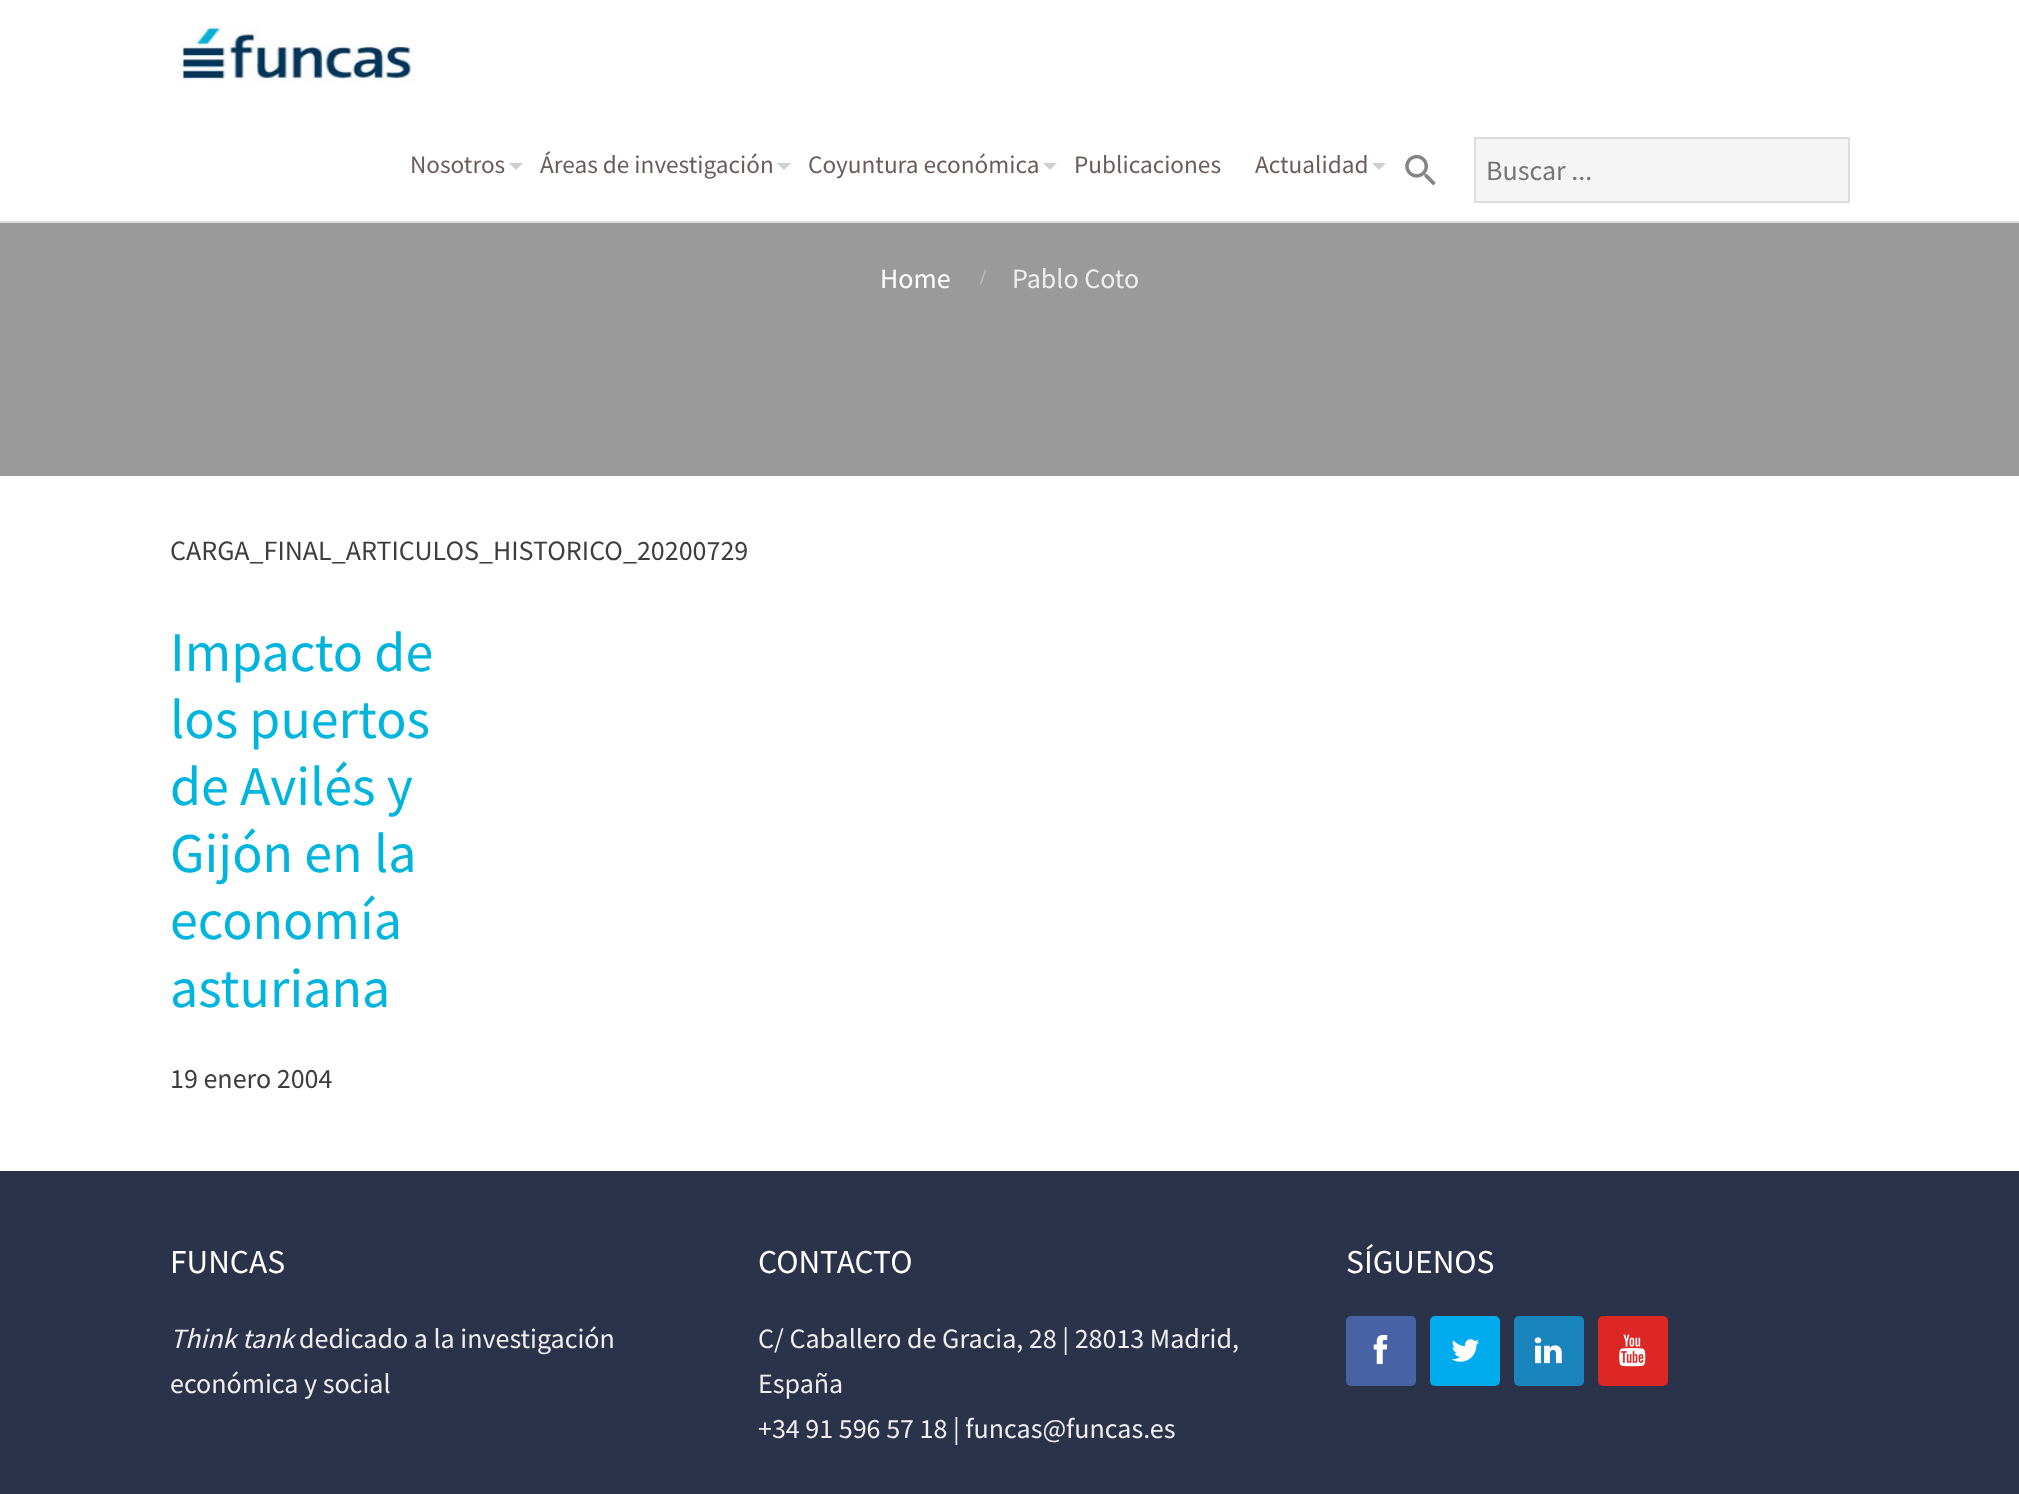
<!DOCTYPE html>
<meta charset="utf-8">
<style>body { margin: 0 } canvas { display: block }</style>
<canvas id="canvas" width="2019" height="1494"></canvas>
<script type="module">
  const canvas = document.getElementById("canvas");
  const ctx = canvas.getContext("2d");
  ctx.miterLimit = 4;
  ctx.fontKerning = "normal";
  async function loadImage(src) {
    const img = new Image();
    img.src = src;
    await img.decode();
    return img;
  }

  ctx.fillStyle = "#ffffff";
  ctx.fillRect(0, 0, 2019, 1494);
  ctx.fillStyle = "#dddddd";
  ctx.fillRect(0, 221, 2019, 2);
  ctx.drawImage(await loadImage("img1.png"), 179, 26, 237, 55);
  ctx.font = "25.25px Source Sans Pro";
  ctx.fillStyle = "#6b5c5c";
  ctx.fillText("Nosotros", 410, 173);
  ctx.fillStyle = "#cfcfcf";
  ctx.beginPath();
  ctx.moveTo(509, 163);
  ctx.lineTo(523, 163);
  ctx.lineTo(516, 170);
  ctx.closePath();
  ctx.fill();
  ctx.fillStyle = "#6b5c5c";
  ctx.fillText("Áreas de investigación", 540, 173);
  ctx.fillStyle = "#cfcfcf";
  ctx.beginPath();
  ctx.moveTo(777, 163);
  ctx.lineTo(791, 163);
  ctx.lineTo(784, 170);
  ctx.closePath();
  ctx.fill();
  ctx.fillStyle = "#6b5c5c";
  ctx.fillText("Coyuntura económica", 808, 173);
  ctx.fillStyle = "#cfcfcf";
  ctx.beginPath();
  ctx.moveTo(1043, 163);
  ctx.lineTo(1057, 163);
  ctx.lineTo(1050, 170);
  ctx.closePath();
  ctx.fill();
  ctx.fillStyle = "#6b5c5c";
  ctx.fillText("Publicaciones", 1074, 173);
  ctx.fillText("Actualidad", 1255, 173);
  ctx.fillStyle = "#cfcfcf";
  ctx.beginPath();
  ctx.moveTo(1372, 163);
  ctx.lineTo(1386, 163);
  ctx.lineTo(1379, 170);
  ctx.closePath();
  ctx.fill();
  ctx.drawImage(await loadImage("img2.png"), 1405, 154, 31, 32);
  ctx.fillStyle = "#f5f5f5";
  ctx.beginPath();
  ctx.rect(1475, 138, 374, 64);
  ctx.fill();
  ctx.strokeStyle = "#dddddd";
  ctx.lineWidth = 2;
  ctx.stroke();
  ctx.font = "28px Source Sans Pro";
  ctx.fillStyle = "#757575";
  ctx.fillText("Buscar ...", 1486, 180);
  ctx.fillStyle = "#9a9a9a";
  ctx.fillRect(0, 223, 2019, 253);
  ctx.fillStyle = "#ffffff";
  ctx.fillText("Home", 880, 288);
  ctx.font = "bold 21px Liberation Serif";
  ctx.fillStyle = "#bcbcbc";
  ctx.fillText("/", 980, 284);
  ctx.font = "28px Source Sans Pro";
  ctx.fillStyle = "#eeeeee";
  ctx.fillText("Pablo Coto", 1012, 288);
  ctx.fillStyle = "#3d3d3d";
  ctx.fillText("CARGA_FINAL_ARTICULOS_HISTORICO_20200729", 170, 560);
  ctx.font = "56px Source Sans Pro";
  ctx.fillStyle = "#00b5dd";
  ctx.fillText("Impacto de", 170, 671);
  ctx.fillText("los puertos", 170, 738);
  ctx.fillText("de Avilés y", 170, 805);
  ctx.fillText("Gijón en la", 170, 872);
  ctx.fillText("economía", 170, 939);
  ctx.fillText("asturiana", 170, 1007);
  ctx.font = "28px Source Sans Pro";
  ctx.fillStyle = "#3d3d3d";
  ctx.fillText("19 enero 2004", 170, 1088);
  ctx.fillStyle = "#2a3349";
  ctx.fillRect(0, 1171, 2019, 323);
  ctx.font = "33.5px Source Sans Pro";
  ctx.fillStyle = "#ffffff";
  ctx.fillText("FUNCAS", 170, 1273);
  ctx.font = "italic 28px Source Sans Pro";
  ctx.fillStyle = "#eeeeee";
  ctx.fillText("Think tank", 170, 1348);
  ctx.font = "28px Source Sans Pro";
  ctx.fillText("dedicado a la investigación", 299, 1348);
  ctx.fillText("económica y social", 170, 1393);
  ctx.font = "33.5px Source Sans Pro";
  ctx.fillStyle = "#ffffff";
  ctx.fillText("CONTACTO", 758, 1273);
  ctx.font = "28px Source Sans Pro";
  ctx.fillStyle = "#eeeeee";
  ctx.fillText("C/ Caballero de Gracia, 28 | 28013 Madrid,", 758, 1348);
  ctx.fillText("España", 758, 1393);
  ctx.fillText("+34 91 596 57 18 | funcas@funcas.es", 758, 1438);
  ctx.font = "33.5px Source Sans Pro";
  ctx.fillStyle = "#ffffff";
  ctx.fillText("SÍGUENOS", 1346, 1273);
  ctx.fillStyle = "#4862a3";
  ctx.beginPath();
  ctx.roundRect(1346, 1316, 70, 70, 5);
  ctx.fill();
  ctx.drawImage(await loadImage("img3.png"), 1373, 1335, 15, 29);
  ctx.fillStyle = "#00acee";
  ctx.beginPath();
  ctx.roundRect(1430, 1316, 70, 70, 5);
  ctx.fill();
  ctx.drawImage(await loadImage("img4.png"), 1451, 1339, 28, 23);
  ctx.fillStyle = "#1a85bc";
  ctx.beginPath();
  ctx.roundRect(1514, 1316, 70, 70, 5);
  ctx.fill();
  ctx.drawImage(await loadImage("img5.png"), 1534, 1337, 28, 27);
  ctx.fillStyle = "#dc2725";
  ctx.beginPath();
  ctx.roundRect(1598, 1316, 70, 70, 5);
  ctx.fill();
  ctx.drawImage(await loadImage("img6.png"), 1619, 1334, 27, 33);
</script>
